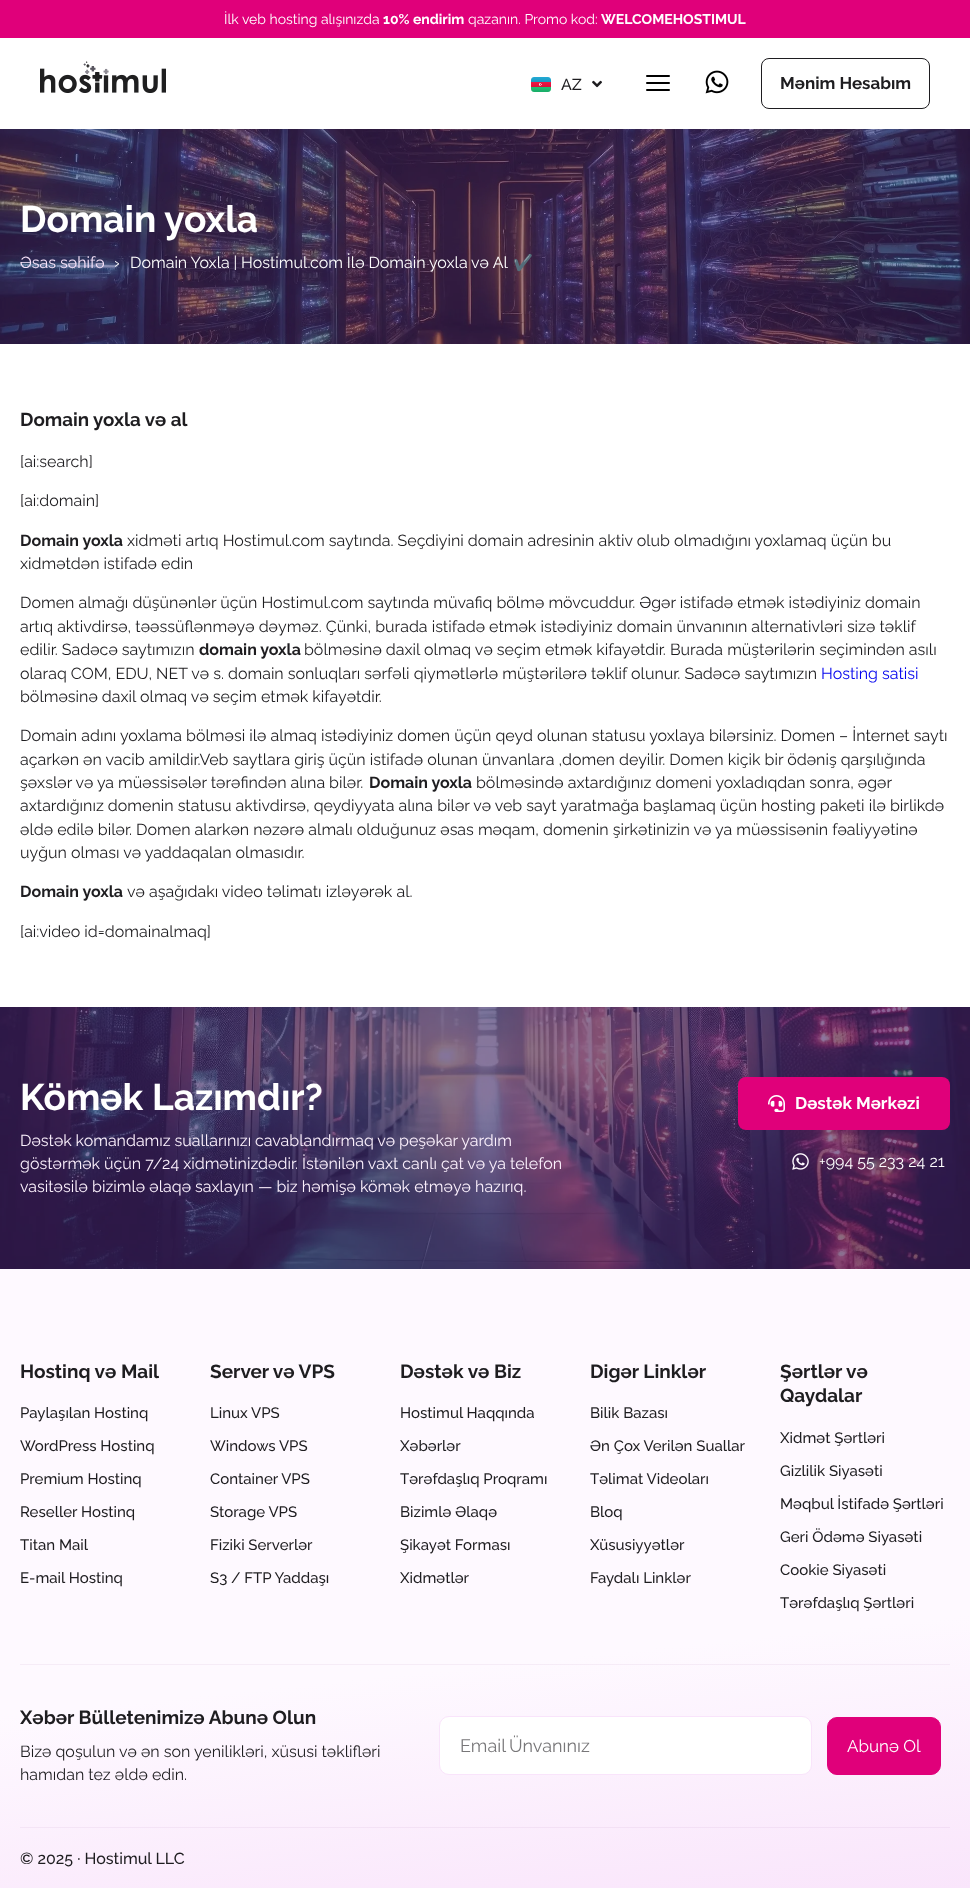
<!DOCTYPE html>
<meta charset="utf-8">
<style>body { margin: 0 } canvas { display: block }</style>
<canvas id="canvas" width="970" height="1888"></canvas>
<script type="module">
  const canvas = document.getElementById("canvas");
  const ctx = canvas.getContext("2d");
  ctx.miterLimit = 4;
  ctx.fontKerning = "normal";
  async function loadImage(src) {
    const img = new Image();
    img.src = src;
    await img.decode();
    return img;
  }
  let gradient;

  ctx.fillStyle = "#ffffff";
  ctx.fillRect(0, 0, 970, 1888);
  ctx.fillStyle = "#e0007a";
  ctx.fillRect(0, 0, 970, 38);
  ctx.font = "14px Raleway";
  ctx.fillStyle = "#ffffff";
  ctx.fillText("İlk veb hosting alışınızda", 224, 24);
  ctx.font = "bold 14px Raleway";
  ctx.fillText("10% endirim", 383, 24);
  ctx.font = "14px Raleway";
  ctx.fillText("qazanın. Promo kod:", 468, 24);
  ctx.font = "bold 14px Raleway";
  ctx.fillText("WELCOMEHOSTIMUL", 601, 24);
  ctx.drawImage(await loadImage("img1.png"), 40, 61, 126, 32);
  ctx.drawImage(await loadImage("img2.png"), 531, 77, 20, 15);
  ctx.font = "500 16px Raleway";
  ctx.fillStyle = "#1e1d20";
  ctx.fillText("AZ", 561, 90);
  ctx.drawImage(await loadImage("img3.png"), 592, 80, 10, 8);
  ctx.fillStyle = "#000000";
  ctx.beginPath();
  ctx.roundRect(646, 82, 24, 2, 1);
  ctx.fill();
  ctx.beginPath();
  ctx.roundRect(646, 75, 24, 2, 1);
  ctx.fill();
  ctx.beginPath();
  ctx.roundRect(646, 89, 24, 2, 1);
  ctx.fill();
  ctx.drawImage(await loadImage("img4.png"), 705, 70, 24, 24);
  ctx.beginPath();
  ctx.roundRect(761.5, 58.5, 168, 50, 7.5);
  ctx.strokeStyle = "#1e1d20";
  ctx.stroke();
  ctx.font = "bold 17px Raleway";
  ctx.fillStyle = "#1e1d20";
  ctx.fillText("Mənim Hesabım", 780, 89);
  ctx.drawImage(await loadImage("img5.png"), 0, 129, 970, 215);
  ctx.font = "bold 37px Raleway";
  ctx.fillStyle = "#ffffff";
  ctx.fillText("Domain yoxla", 20, 232);
  ctx.font = "16px Raleway";
  ctx.fillStyle = "#f9e4fb";
  ctx.fillText("Əsas səhifə", 20, 268);
  ctx.fillStyle = "#ffffff";
  ctx.fillText("›", 114, 268);
  ctx.wordSpacing = "-0.25px";
  ctx.fillText("Domain Yoxla | Hostimul.com İlə Domain yoxla və Al", 130, 268);
  ctx.wordSpacing = "0px";
  ctx.font = "16px Noto Color Emoji";
  ctx.fillText("✔️", 513, 268);
  ctx.font = "bold 18.75px Raleway";
  ctx.fillStyle = "#1e1d20";
  ctx.fillText("Domain yoxla və al", 20, 426);
  ctx.font = "16px Raleway";
  ctx.fillText("[ai:search]", 20, 467);
  ctx.fillText("[ai:domain]", 20, 506);
  ctx.font = "bold 16px Raleway";
  ctx.fillText("Domain yoxla", 20, 546);
  ctx.font = "16px Raleway";
  ctx.fillText("xidməti artıq Hostimul.com saytında. Seçdiyini domain adresinin aktiv olub olmadığını yoxlamaq üçün bu", 127, 546);
  ctx.fillText("xidmətdən istifadə edin", 20, 569);
  ctx.fillText("Domen almağı düşünənlər üçün Hostimul.com saytında müvafiq bölmə mövcuddur. Əgər istifadə etmək istədiyiniz domain", 20, 608);
  ctx.fillText("artıq aktivdirsə, təəssüflənməyə dəyməz. Çünki, burada istifadə etmək istədiyiniz domain ünvanının alternativləri sizə təklif", 20, 632);
  ctx.fillText("edilir. Sadəcə saytımızın", 20, 655);
  ctx.font = "bold 16px Raleway";
  ctx.fillText("domain yoxla", 199, 655);
  ctx.font = "16px Raleway";
  ctx.fillText("bölməsinə daxil olmaq və seçim etmək kifayətdir. Burada müştərilərin seçimindən asılı", 304, 655);
  ctx.fillText("olaraq COM, EDU, NET və s. domain sonluqları sərfəli qiymətlərlə müştərilərə təklif olunur. Sadəcə saytımızın", 20, 679);
  ctx.fillStyle = "#0000ee";
  ctx.fillText("Hosting satisi", 821, 679);
  ctx.fillStyle = "#1e1d20";
  ctx.fillText("bölməsinə daxil olmaq və seçim etmək kifayətdir.", 20, 702);
  ctx.fillText("Domain adını yoxlama bölməsi ilə almaq istədiyiniz domen üçün qeyd olunan statusu yoxlaya bilərsiniz. Domen – İnternet saytı", 20, 741);
  ctx.fillText("açarkən ən vacib amildir.Veb saytlara giriş üçün istifadə olunan ünvanlara ,domen deyilir. Domen kiçik bir ödəniş qarşılığında", 20, 765);
  ctx.wordSpacing = "-0.1px";
  ctx.fillText("şəxslər və ya müəssisələr tərəfindən alına bilər.", 20, 788);
  ctx.wordSpacing = "0px";
  ctx.font = "bold 16px Raleway";
  ctx.fillText("Domain yoxla", 369, 788);
  ctx.wordSpacing = "-0.1px";
  ctx.font = "16px Raleway";
  ctx.fillText("bölməsində axtardığınız domeni yoxladıqdan sonra, əgər", 476, 788);
  ctx.wordSpacing = "0px";
  ctx.fillText("axtardığınız domenin statusu aktivdirsə, qeydiyyata alına bilər və veb sayt yaratmağa başlamaq üçün hosting paketi ilə birlikdə", 20, 811);
  ctx.fillText("əldə edilə bilər. Domen alarkən nəzərə almalı olduğunuz əsas məqam, domenin şirkətinizin və ya müəssisənin fəaliyyətinə", 20, 835);
  ctx.fillText("uyğun olması və yaddaqalan olmasıdır.", 20, 858);
  ctx.font = "bold 16px Raleway";
  ctx.fillText("Domain yoxla", 20, 897);
  ctx.font = "16px Raleway";
  ctx.fillText("və aşağıdakı video təlimatı izləyərək al.", 127, 897);
  ctx.fillText("[ai:video id=domainalmaq]", 20, 937);
  ctx.drawImage(await loadImage("img6.png"), 0, 1007, 970, 262);
  ctx.font = "bold 37px Raleway";
  ctx.fillStyle = "#ffffff";
  ctx.fillText("Kömək Lazımdır?", 20, 1110);
  ctx.wordSpacing = "-0.25px";
  ctx.font = "16px Raleway";
  ctx.fillStyle = "#fcf1fd";
  ctx.fillText("Dəstək komandamız suallarınızı cavablandırmaq və peşəkar yardım", 20, 1146);
  ctx.wordSpacing = "-0.1px";
  ctx.fillText("göstərmək üçün 7/24 xidmətinizdədir. İstənilən vaxt canlı çat və ya telefon", 20, 1169);
  ctx.wordSpacing = "0px";
  ctx.fillText("vasitəsilə bizimlə əlaqə saxlayın — biz həmişə kömək etməyə hazırıq.", 20, 1192);
  ctx.fillStyle = "#e0007a";
  ctx.beginPath();
  ctx.roundRect(738, 1077, 212, 53, 8);
  ctx.fill();
  ctx.drawImage(await loadImage("img7.png"), 768, 1095, 17, 17);
  ctx.font = "bold 17px Raleway";
  ctx.fillStyle = "#ffffff";
  ctx.fillText("Dəstək Mərkəzi", 795, 1109);
  ctx.drawImage(await loadImage("img8.png"), 792, 1153, 17, 17);
  ctx.font = "16px Raleway";
  ctx.fillText("+994 55 233 24 21", 819, 1167);
  gradient = ctx.createLinearGradient(447, 1222, 523, 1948);
  gradient.addColorStop(0.61, "#fef9ff");
  gradient.addColorStop(1, "#f9e4fb");
  ctx.fillStyle = gradient;
  ctx.fillRect(0, 1269, 970, 619);
  gradient = ctx.createLinearGradient(447, 1222, 523, 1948);
  gradient.addColorStop(0.61, "#f6ecf7");
  gradient.addColorStop(1, "#f1d8f4");
  ctx.fillStyle = gradient;
  ctx.fillRect(20, 1827, 930, 1);
  ctx.fillRect(20, 1664, 930, 1);
  ctx.font = "bold 19px Raleway";
  ctx.fillStyle = "#1e1d20";
  ctx.fillText("Hostinq və Mail", 20, 1378);
  ctx.font = "500 15px Raleway";
  ctx.fillText("Paylaşılan Hostinq", 20, 1418);
  ctx.fillText("WordPress Hostinq", 20, 1451);
  ctx.fillText("Premium Hostinq", 20, 1484);
  ctx.fillText("Reseller Hostinq", 20, 1517);
  ctx.fillText("Titan Mail", 20, 1550);
  ctx.fillText("E-mail Hostinq", 20, 1583);
  ctx.font = "bold 19px Raleway";
  ctx.fillText("Server və VPS", 210, 1378);
  ctx.font = "500 15px Raleway";
  ctx.fillText("Linux VPS", 210, 1418);
  ctx.fillText("Windows VPS", 210, 1451);
  ctx.fillText("Container VPS", 210, 1484);
  ctx.fillText("Storage VPS", 210, 1517);
  ctx.fillText("Fiziki Serverlər", 210, 1550);
  ctx.fillText("S3 / FTP Yaddaşı", 210, 1583);
  ctx.font = "bold 19px Raleway";
  ctx.fillText("Dəstək və Biz", 400, 1378);
  ctx.font = "500 15px Raleway";
  ctx.fillText("Hostimul Haqqında", 400, 1418);
  ctx.fillText("Xəbərlər", 400, 1451);
  ctx.fillText("Tərəfdaşlıq Proqramı", 400, 1484);
  ctx.fillText("Bizimlə Əlaqə", 400, 1517);
  ctx.fillText("Şikayət Forması", 400, 1550);
  ctx.fillText("Xidmətlər", 400, 1583);
  ctx.font = "bold 19px Raleway";
  ctx.fillText("Digər Linklər", 590, 1378);
  ctx.font = "500 15px Raleway";
  ctx.fillText("Bilik Bazası", 590, 1418);
  ctx.fillText("Ən Çox Verilən Suallar", 590, 1451);
  ctx.fillText("Təlimat Videoları", 590, 1484);
  ctx.fillText("Bloq", 590, 1517);
  ctx.fillText("Xüsusiyyətlər", 590, 1550);
  ctx.fillText("Faydalı Linklər", 590, 1583);
  ctx.font = "bold 19px Raleway";
  ctx.fillText("Şərtlər və", 780, 1378);
  ctx.fillText("Qaydalar", 780, 1402);
  ctx.font = "500 15px Raleway";
  ctx.fillText("Xidmət Şərtləri", 780, 1443);
  ctx.fillText("Gizlilik Siyasəti", 780, 1476);
  ctx.fillText("Məqbul İstifadə Şərtləri", 780, 1509);
  ctx.fillText("Geri Ödəmə Siyasəti", 780, 1542);
  ctx.fillText("Cookie Siyasəti", 780, 1575);
  ctx.fillText("Tərəfdaşlıq Şərtləri", 780, 1608);
  ctx.font = "bold 19px Raleway";
  ctx.fillText("Xəbər Bülletenimizə Abunə Olun", 20, 1724);
  ctx.font = "16px Raleway";
  ctx.fillText("Bizə qoşulun və ən son yenilikləri, xüsusi təklifləri", 20, 1757);
  ctx.fillText("hamıdan tez əldə edin.", 20, 1780);
  ctx.fillStyle = "#ffffff";
  ctx.beginPath();
  ctx.roundRect(439.5, 1716.5, 372, 58, 9.5);
  ctx.fill();
  ctx.strokeStyle = "#f9e4fb";
  ctx.stroke();
  ctx.wordSpacing = "-1px";
  ctx.font = "18px Raleway";
  ctx.fillStyle = "#787779";
  ctx.fillText("Email Ünvanınız", 460, 1752);
  ctx.fillStyle = "#e0007a";
  ctx.beginPath();
  ctx.roundRect(827.5, 1717.5, 113, 57, 9.5);
  ctx.fill();
  ctx.strokeStyle = "#e0007a";
  ctx.stroke();
  ctx.wordSpacing = "0px";
  ctx.font = "17px Raleway";
  ctx.fillStyle = "#ffffff";
  ctx.fillText("Abunə Ol", 847, 1752);
  ctx.font = "500 16px Raleway";
  ctx.fillStyle = "#1e1d20";
  ctx.fillText("© 2025 · Hostimul LLC", 20, 1864);
</script>
